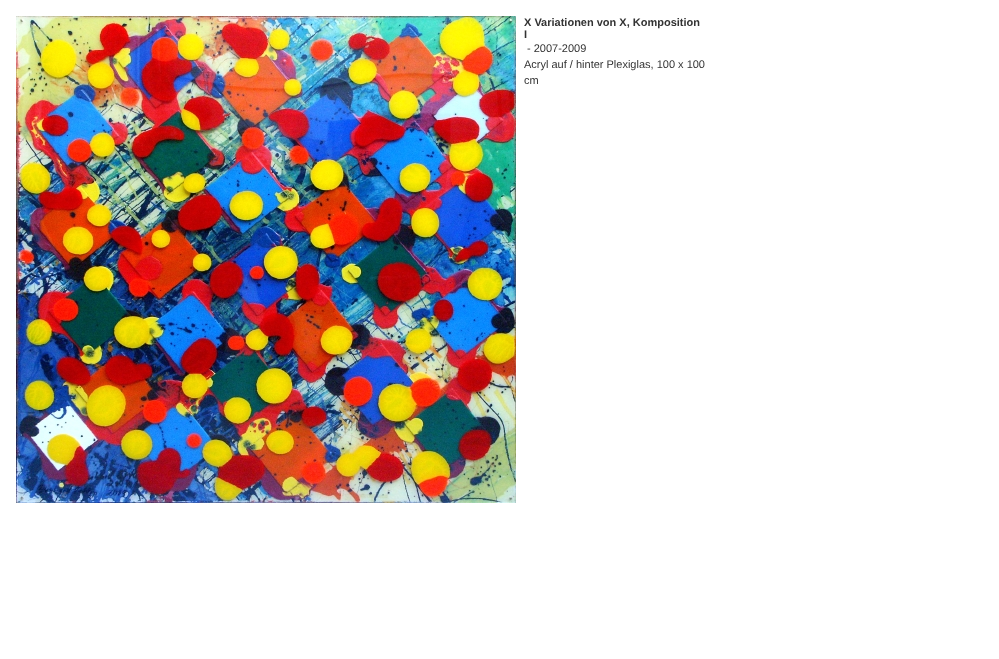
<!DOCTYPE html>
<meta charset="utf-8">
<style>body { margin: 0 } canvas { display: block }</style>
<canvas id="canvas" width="999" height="659"></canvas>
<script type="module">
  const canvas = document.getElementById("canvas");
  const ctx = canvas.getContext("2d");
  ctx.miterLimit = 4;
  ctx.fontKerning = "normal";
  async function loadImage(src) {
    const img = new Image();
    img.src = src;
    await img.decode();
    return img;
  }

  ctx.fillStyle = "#ffffff";
  ctx.fillRect(0, 0, 999, 659);
  ctx.drawImage(await loadImage("img1.png"), 16, 16, 500, 487);
  ctx.font = "bold 11px Liberation Sans";
  ctx.fillStyle = "#333333";
  ctx.fillText("X Variationen von X, Komposition", 524, 26);
  ctx.fillText("I", 524, 38);
  ctx.font = "11px Liberation Sans";
  ctx.fillText("- 2007-2009", 527, 52);
  ctx.fillText("Acryl auf / hinter Plexiglas, 100 x 100", 524, 68);
  ctx.fillText("cm", 524, 84);
</script>
